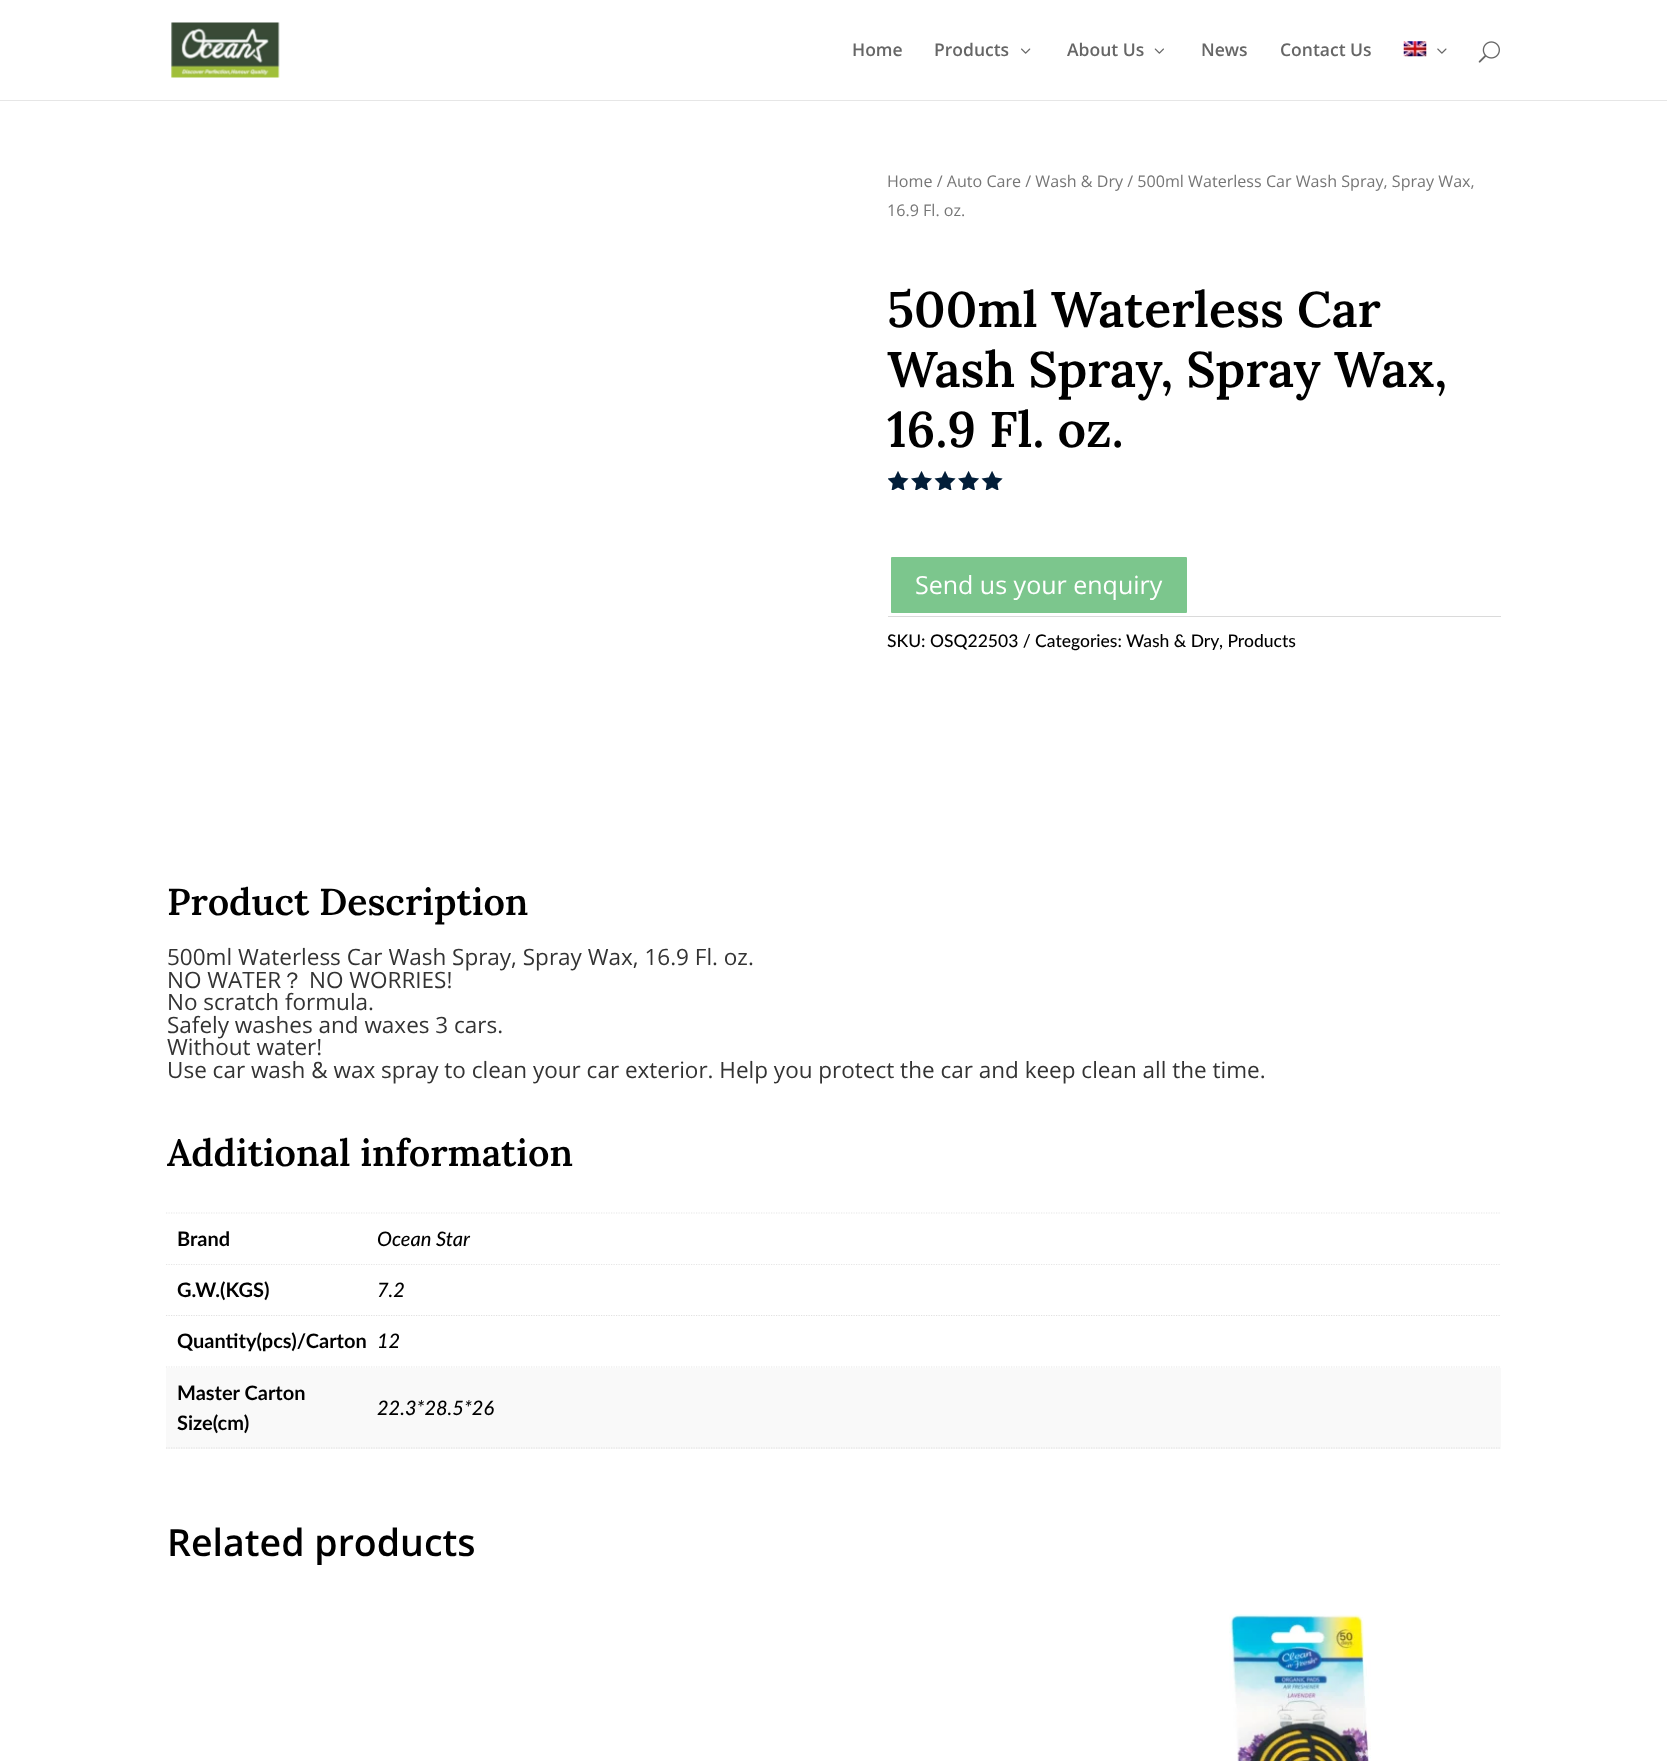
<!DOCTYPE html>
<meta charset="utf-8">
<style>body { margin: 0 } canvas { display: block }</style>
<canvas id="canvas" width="1667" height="1761"></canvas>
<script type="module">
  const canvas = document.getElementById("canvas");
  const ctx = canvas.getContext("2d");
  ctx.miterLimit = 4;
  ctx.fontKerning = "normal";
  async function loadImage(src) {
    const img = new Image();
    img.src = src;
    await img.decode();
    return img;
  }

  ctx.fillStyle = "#ffffff";
  ctx.fillRect(0, 0, 1667, 1761);
  ctx.fillStyle = "#e6e6e6";
  ctx.beginPath();
  ctx.moveTo(0, 100);
  ctx.lineTo(0, 101);
  ctx.lineTo(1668, 101);
  ctx.lineTo(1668, 1);
  ctx.lineTo(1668, 100);
  ctx.closePath();
  ctx.fill();
  ctx.drawImage(await loadImage("img1.png"), 171, 22, 109, 56);
  ctx.font = "600 17.5px Open Sans";
  ctx.fillStyle = "#666666";
  ctx.fillText("Home", 852, 56);
  ctx.fillText("Products", 934, 56);
  ctx.drawImage(await loadImage("img2.png"), 1021, 48, 10, 6);
  ctx.fillText("About Us", 1067, 56);
  ctx.drawImage(await loadImage("img3.png"), 1154, 48, 10, 6);
  ctx.fillText("News", 1201, 56);
  ctx.fillText("Contact Us", 1280, 56);
  ctx.drawImage(await loadImage("img4.png"), 1403, 41, 24, 16);
  ctx.drawImage(await loadImage("img5.png"), 1437, 48, 10, 6);
  ctx.drawImage(await loadImage("img6.png"), 1478, 41, 22, 22);
  ctx.font = "16.1px Open Sans";
  ctx.fillStyle = "#767676";
  ctx.fillText("Home / Auto Care / Wash & Dry / 500ml Waterless Car Wash Spray, Spray Wax,", 887, 187);
  ctx.fillText("16.9 Fl. oz.", 887, 216);
  ctx.font = "600 50px Lora";
  ctx.fillStyle = "#000000";
  ctx.fillText("500ml Waterless Car", 887, 327);
  ctx.fillText("Wash Spray, Spray Wax,", 887, 387);
  ctx.fillText("16.9 Fl. oz.", 887, 447);
  ctx.drawImage(await loadImage("img7.png"), 888, 471, 115, 19);
  ctx.drawImage(await loadImage("img8.png"), 888, 471, 115, 19);
  ctx.fillStyle = "#7cc68d";
  ctx.beginPath();
  ctx.roundRect(889.5, 555.5, 299, 59, 2.5);
  ctx.fill();
  ctx.strokeStyle = "#ffffff";
  ctx.lineWidth = 3;
  ctx.stroke();
  ctx.font = "25px Open Sans";
  ctx.fillStyle = "#ffffff";
  ctx.fillText("Send us your enquiry", 915, 594);
  ctx.fillStyle = "#dadada";
  ctx.fillRect(888, 616, 613, 1);
  ctx.font = "500 17.5px Lato";
  ctx.fillStyle = "#000000";
  ctx.fillText("SKU: OSQ22503 / Categories:", 887, 647);
  ctx.fillText("Wash & Dry", 1126, 647);
  ctx.fillText(", Products", 1219, 647);
  ctx.font = "600 37.5px Lora";
  ctx.fillText("Product Description", 167, 915);
  ctx.font = "22.5px Open Sans";
  ctx.fillStyle = "#333333";
  ctx.fillText("500ml Waterless Car Wash Spray, Spray Wax, 16.9 Fl. oz.", 167, 965);
  ctx.fillText("NO WATER", 167, 988);
  ctx.font = "500 22.5px WenQuanYi Zen Hei";
  ctx.fillText("？", 281, 988);
  ctx.font = "22.5px Open Sans";
  ctx.fillText("NO WORRIES!", 309, 988);
  ctx.fillText("No scratch formula.", 167, 1010);
  ctx.fillText("Safely washes and waxes 3 cars.", 167, 1033);
  ctx.fillText("Without water!", 167, 1055);
  ctx.fillText("Use car wash & wax spray to clean your car exterior. Help you protect the car and keep clean all the time.", 167, 1078);
  ctx.font = "600 37.5px Lora";
  ctx.fillStyle = "#000000";
  ctx.fillText("Additional information", 167, 1166);
  ctx.beginPath();
  ctx.moveTo(166, 1213);
  ctx.lineTo(1501, 1213);
  ctx.strokeStyle = "#e6e6e6";
  ctx.lineWidth = 1.2;
  ctx.setLineDash([1.25, 1.25]);
  ctx.stroke();
  ctx.beginPath();
  ctx.moveTo(166, 1264.5);
  ctx.lineTo(376, 1264.5);
  ctx.stroke();
  ctx.font = "bold 20px Lato";
  ctx.fillText("Brand", 177, 1246);
  ctx.beginPath();
  ctx.moveTo(376, 1264.5);
  ctx.lineTo(1501, 1264.5);
  ctx.stroke();
  ctx.font = "italic 500 20px Lato";
  ctx.fillText("Ocean Star", 377, 1246);
  ctx.beginPath();
  ctx.moveTo(166, 1315.5);
  ctx.lineTo(376, 1315.5);
  ctx.strokeStyle = "#e1e1e1";
  ctx.stroke();
  ctx.font = "bold 20px Lato";
  ctx.fillText("G.W.(KGS)", 177, 1297);
  ctx.beginPath();
  ctx.moveTo(376, 1315.5);
  ctx.lineTo(1501, 1315.5);
  ctx.stroke();
  ctx.font = "italic 500 20px Lato";
  ctx.fillText("7.2", 377, 1297);
  ctx.beginPath();
  ctx.moveTo(166, 1367);
  ctx.lineTo(376, 1367);
  ctx.strokeStyle = "#e6e6e6";
  ctx.stroke();
  ctx.font = "bold 20px Lato";
  ctx.fillText("Quantity(pcs)/Carton", 177, 1348);
  ctx.beginPath();
  ctx.moveTo(376, 1367);
  ctx.lineTo(1501, 1367);
  ctx.stroke();
  ctx.font = "italic 500 20px Lato";
  ctx.fillText("12", 377, 1348);
  ctx.fillStyle = "#f9f9f9";
  ctx.fillRect(166, 1368, 1335, 81);
  ctx.beginPath();
  ctx.moveTo(166, 1448);
  ctx.lineTo(376, 1448);
  ctx.strokeStyle = "#e0e0e0";
  ctx.stroke();
  ctx.font = "bold 20px Lato";
  ctx.fillStyle = "#000000";
  ctx.fillText("Master Carton", 177, 1400);
  ctx.fillText("Size(cm)", 177, 1430);
  ctx.beginPath();
  ctx.moveTo(376, 1448);
  ctx.lineTo(1501, 1448);
  ctx.stroke();
  ctx.font = "italic 500 20px Lato";
  ctx.fillText("22.3*28.5*26", 377, 1415);
  ctx.font = "600 37.5px Open Sans";
  ctx.fillText("Related products", 167, 1556);
  ctx.drawImage(await loadImage("img9.png"), 1229, 1614, 142, 147);
</script>
